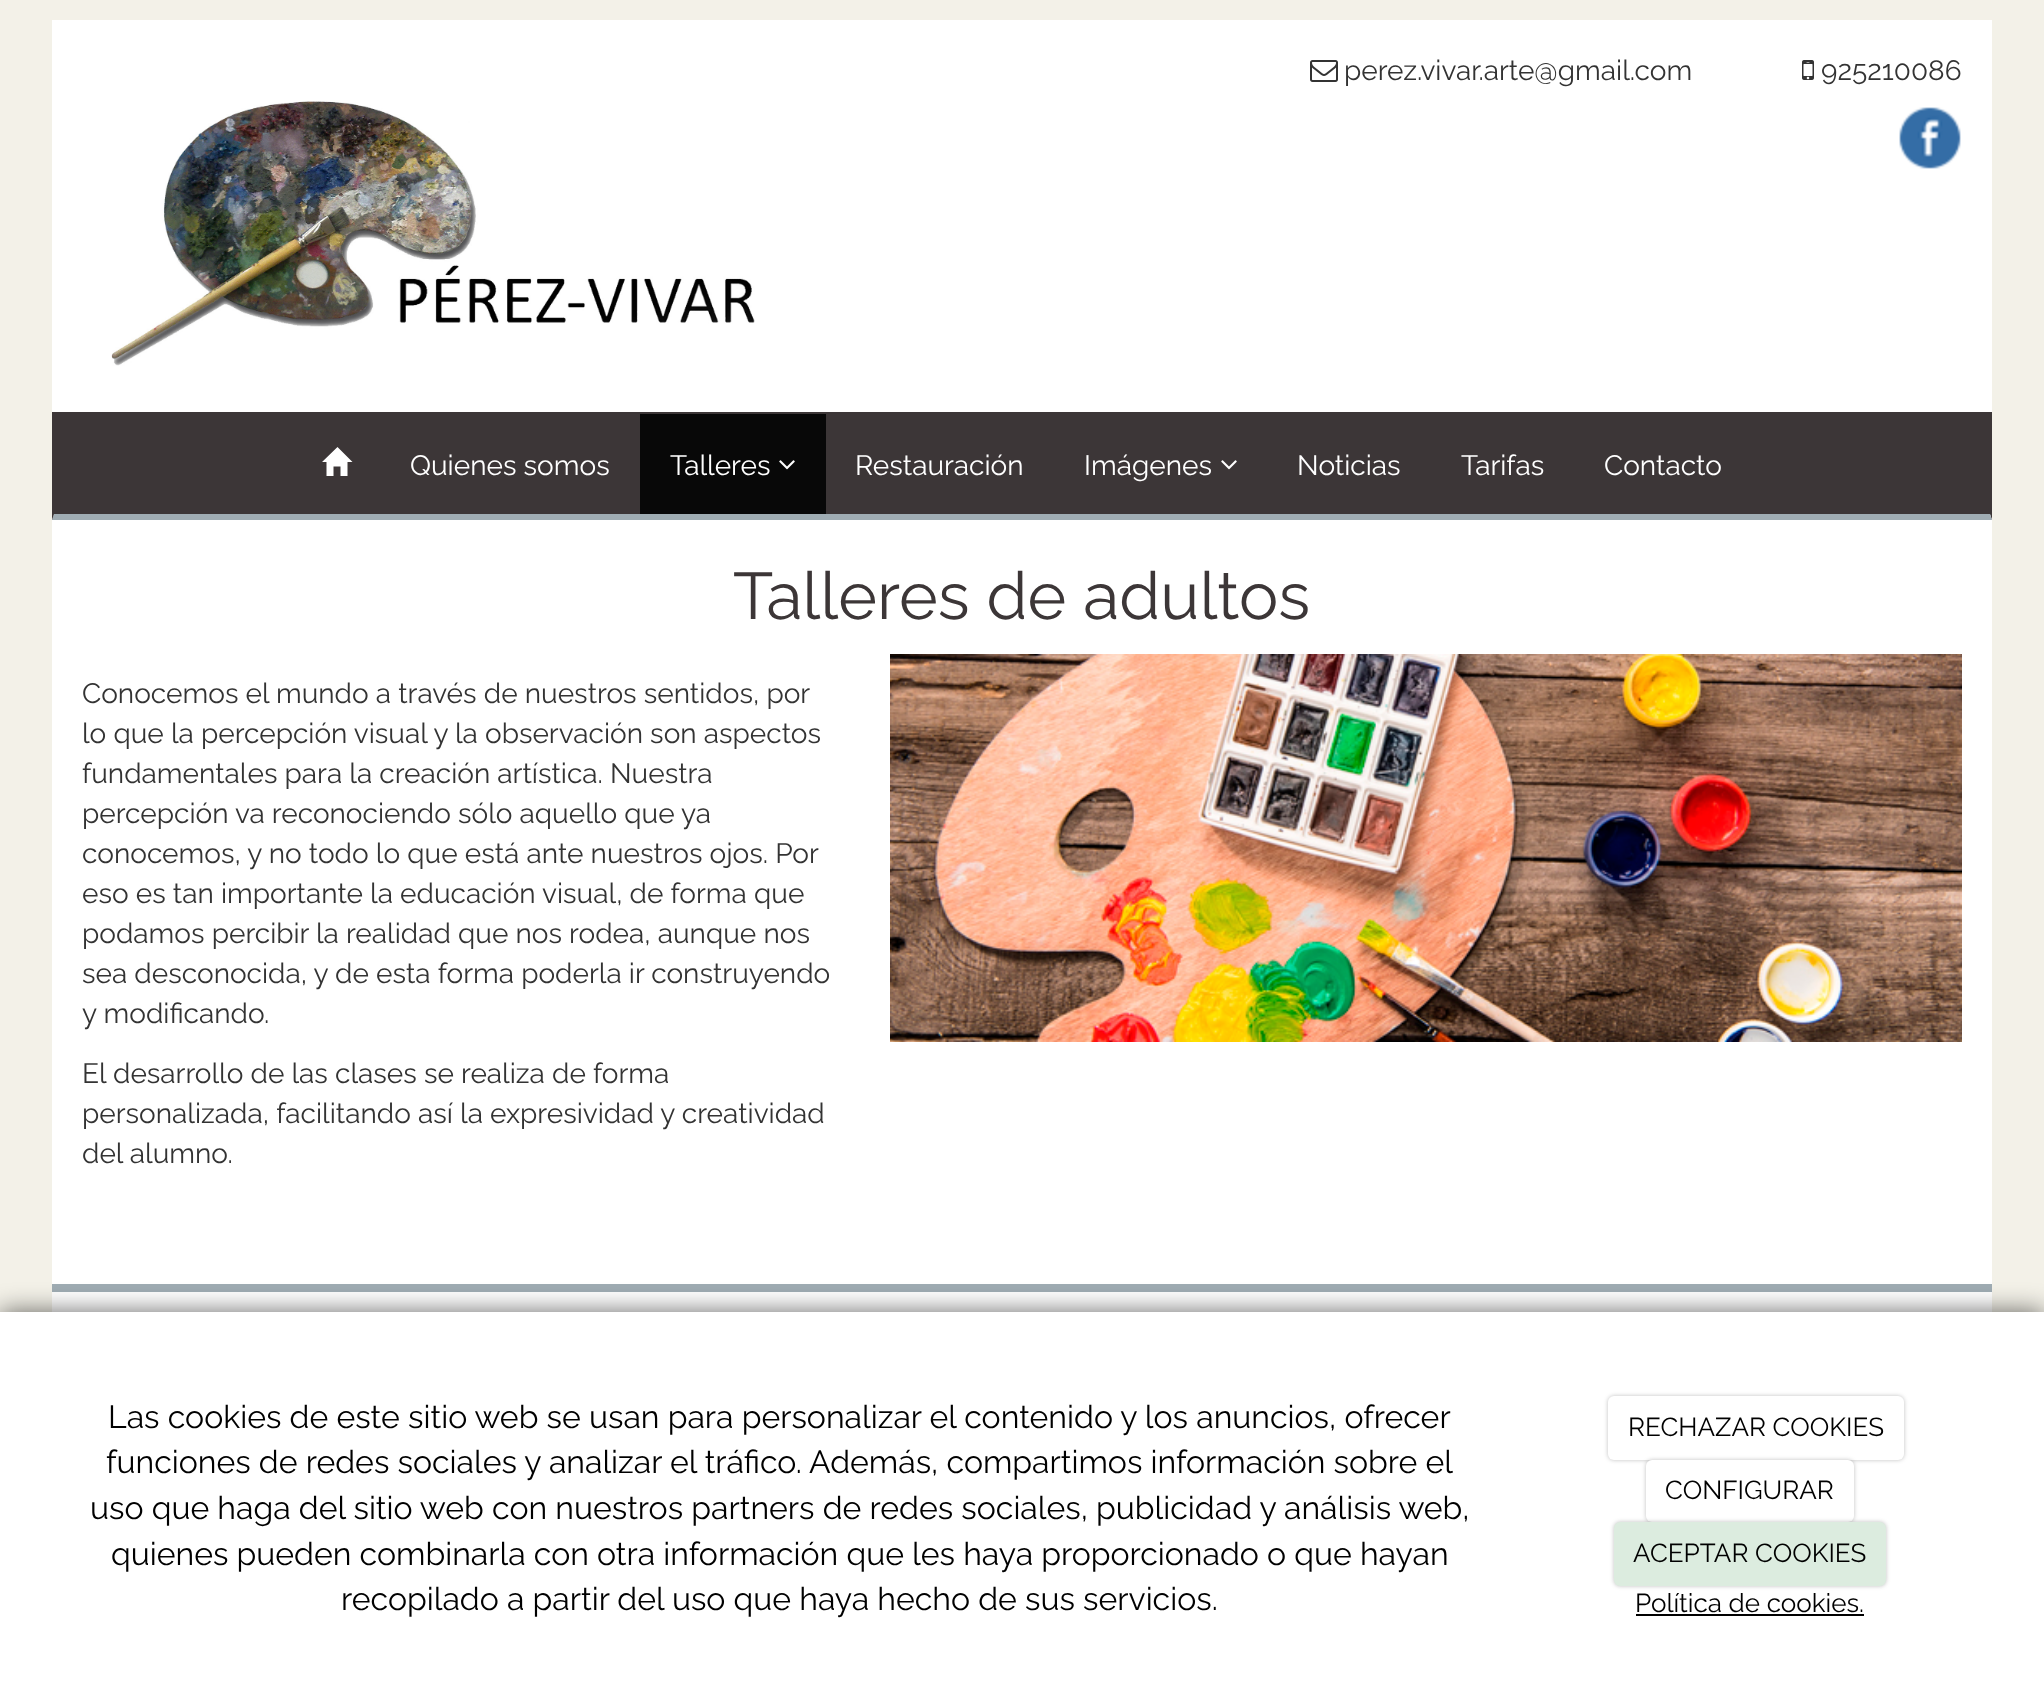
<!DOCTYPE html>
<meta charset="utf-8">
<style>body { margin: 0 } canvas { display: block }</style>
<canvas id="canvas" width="2044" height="1708"></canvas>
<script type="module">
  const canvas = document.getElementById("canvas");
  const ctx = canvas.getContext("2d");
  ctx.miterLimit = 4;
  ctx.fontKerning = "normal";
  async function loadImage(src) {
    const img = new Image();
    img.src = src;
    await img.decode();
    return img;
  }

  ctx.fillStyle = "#f3f1e8";
  ctx.fillRect(0, 0, 2044, 1708);
  ctx.fillStyle = "#ffffff";
  ctx.fillRect(52, 20, 1940, 1292);
  ctx.drawImage(await loadImage("img1.png"), 1310, 60, 28, 22);
  ctx.font = "100 28px Raleway";
  ctx.fillStyle = "#333333";
  ctx.fillText("perez.vivar.arte@gmail.com", 1344, 80);
  ctx.drawImage(await loadImage("img2.png"), 1802, 60, 12, 20);
  ctx.fillText("925210086", 1821, 80);
  ctx.drawImage(await loadImage("img3.png"), 1899, 107, 62, 62);
  ctx.drawImage(await loadImage("img4.png"), 111, 101, 644, 265);
  ctx.fillStyle = "#3c3637";
  ctx.fillRect(54, 414, 1936, 100);
  ctx.fillRect(52, 412, 1940, 2);
  ctx.beginPath();
  ctx.moveTo(1992, 412);
  ctx.lineTo(1992, 520);
  ctx.lineTo(1990, 514);
  ctx.lineTo(1990, 414);
  ctx.closePath();
  ctx.fill();
  ctx.fillStyle = "#9facb3";
  ctx.beginPath();
  ctx.moveTo(1992, 520);
  ctx.lineTo(52, 520);
  ctx.lineTo(54, 514);
  ctx.lineTo(1990, 514);
  ctx.closePath();
  ctx.fill();
  ctx.fillStyle = "#3c3637";
  ctx.beginPath();
  ctx.moveTo(52, 520);
  ctx.lineTo(52, 412);
  ctx.lineTo(54, 414);
  ctx.lineTo(54, 514);
  ctx.closePath();
  ctx.fill();
  ctx.fillStyle = "#ffffff";
  ctx.beginPath();
  ctx.moveTo(322, 462);
  ctx.lineTo(337.5, 447);
  ctx.lineTo(352.5, 462);
  ctx.lineTo(347.5, 462);
  ctx.lineTo(347.5, 476);
  ctx.lineTo(340.5, 476);
  ctx.lineTo(340.5, 466.5);
  ctx.lineTo(333.5, 466.5);
  ctx.lineTo(333.5, 476);
  ctx.lineTo(326.5, 476);
  ctx.lineTo(326.5, 462);
  ctx.closePath();
  ctx.fill();
  ctx.fillText("Quienes somos", 410, 475);
  ctx.fillStyle = "#080808";
  ctx.fillRect(640, 414, 186, 100);
  ctx.fillStyle = "#ffffff";
  ctx.fillText("Talleres", 670, 475);
  ctx.drawImage(await loadImage("img5.png"), 779, 460, 16, 10);
  ctx.fillText("Restauración", 855, 475);
  ctx.fillText("Imágenes", 1084, 475);
  ctx.drawImage(await loadImage("img6.png"), 1221, 460, 16, 10);
  ctx.fillText("Noticias", 1297, 475);
  ctx.fillText("Tarifas", 1461, 475);
  ctx.fillText("Contacto", 1604, 475);
  ctx.font = "100 66px Raleway";
  ctx.fillStyle = "#3c3637";
  ctx.fillText("Talleres de adultos", 733, 619);
  ctx.font = "100 28px Raleway";
  ctx.fillStyle = "#333333";
  ctx.fillText("Conocemos el mundo a través de nuestros sentidos, por", 82, 703);
  ctx.fillText("lo que la percepción visual y la observación son aspectos", 82, 743);
  ctx.fillText("fundamentales para la creación artística. Nuestra", 82, 783);
  ctx.fillText("percepción va reconociendo sólo aquello que ya", 82, 823);
  ctx.fillText("conocemos, y no todo lo que está ante nuestros ojos. Por", 82, 863);
  ctx.fillText("eso es tan importante la educación visual, de forma que", 82, 903);
  ctx.fillText("podamos percibir la realidad que nos rodea, aunque nos", 82, 943);
  ctx.fillText("sea desconocida, y de esta forma poderla ir construyendo", 82, 983);
  ctx.fillText("y modificando.", 82, 1023);
  ctx.fillText("El desarrollo de las clases se realiza de forma", 82, 1083);
  ctx.fillText("personalizada, facilitando así la expresividad y creatividad", 82, 1123);
  ctx.fillText("del alumno.", 82, 1163);
  ctx.drawImage(await loadImage("img7.png"), 890, 654, 1072, 388);
  ctx.fillStyle = "#9facb3";
  ctx.fillRect(52, 1284, 1940, 8);
  ctx.fillStyle = "rgba(0, 0, 0, 0.6)";
  ctx.filter = "blur(13px)";
  ctx.beginPath();
  ctx.rect(0, 1312, 2044, 396);
  ctx.fill();
  ctx.filter = "none";
  ctx.fillStyle = "#ffffff";
  ctx.fillRect(0, 1312, 2044, 396);
  ctx.font = "100 32px Raleway";
  ctx.fillStyle = "#000000";
  ctx.fillText("Las cookies de este sitio web se usan para personalizar el contenido y los anuncios, ofrecer", 108, 1428);
  ctx.fillText("funciones de redes sociales y analizar el tráfico. Además, compartimos información sobre el", 106, 1473);
  ctx.fillText("uso que haga del sitio web con nuestros partners de redes sociales, publicidad y análisis web,", 90, 1519);
  ctx.fillText("quienes pueden combinarla con otra información que les haya proporcionado o que hayan", 111, 1565);
  ctx.fillText("recopilado a partir del uso que haya hecho de sus servicios.", 341, 1610);
  ctx.fillStyle = "rgba(0, 0, 0, 0.25)";
  ctx.filter = "blur(2px)";
  ctx.beginPath();
  ctx.roundRect(1608, 1396, 296, 64, 6);
  ctx.fill();
  ctx.filter = "none";
  ctx.fillStyle = "#ffffff";
  ctx.beginPath();
  ctx.roundRect(1608, 1396, 296, 64, 6);
  ctx.fill();
  ctx.font = "100 26px Raleway";
  ctx.fillStyle = "#000000";
  ctx.fillText("RECHAZAR COOKIES", 1628, 1436);
  ctx.fillStyle = "rgba(0, 0, 0, 0.25)";
  ctx.filter = "blur(2px)";
  ctx.beginPath();
  ctx.roundRect(1646, 1460, 208, 62, 6);
  ctx.fill();
  ctx.filter = "none";
  ctx.fillStyle = "#ffffff";
  ctx.beginPath();
  ctx.roundRect(1646, 1460, 208, 62, 6);
  ctx.fill();
  ctx.fillStyle = "#000000";
  ctx.fillText("CONFIGURAR", 1665, 1499);
  ctx.fillStyle = "rgba(0, 0, 0, 0.25)";
  ctx.filter = "blur(2px)";
  ctx.beginPath();
  ctx.roundRect(1614, 1522, 272, 64, 6);
  ctx.fill();
  ctx.filter = "none";
  ctx.fillStyle = "#dcecdf";
  ctx.beginPath();
  ctx.roundRect(1614, 1522, 272, 64, 6);
  ctx.fill();
  ctx.fillStyle = "#000000";
  ctx.fillText("ACEPTAR COOKIES", 1633, 1562);
  ctx.fillText("Política de cookies.", 1635, 1612);
  ctx.fillRect(1636, 1614, 228, 2);
</script>
